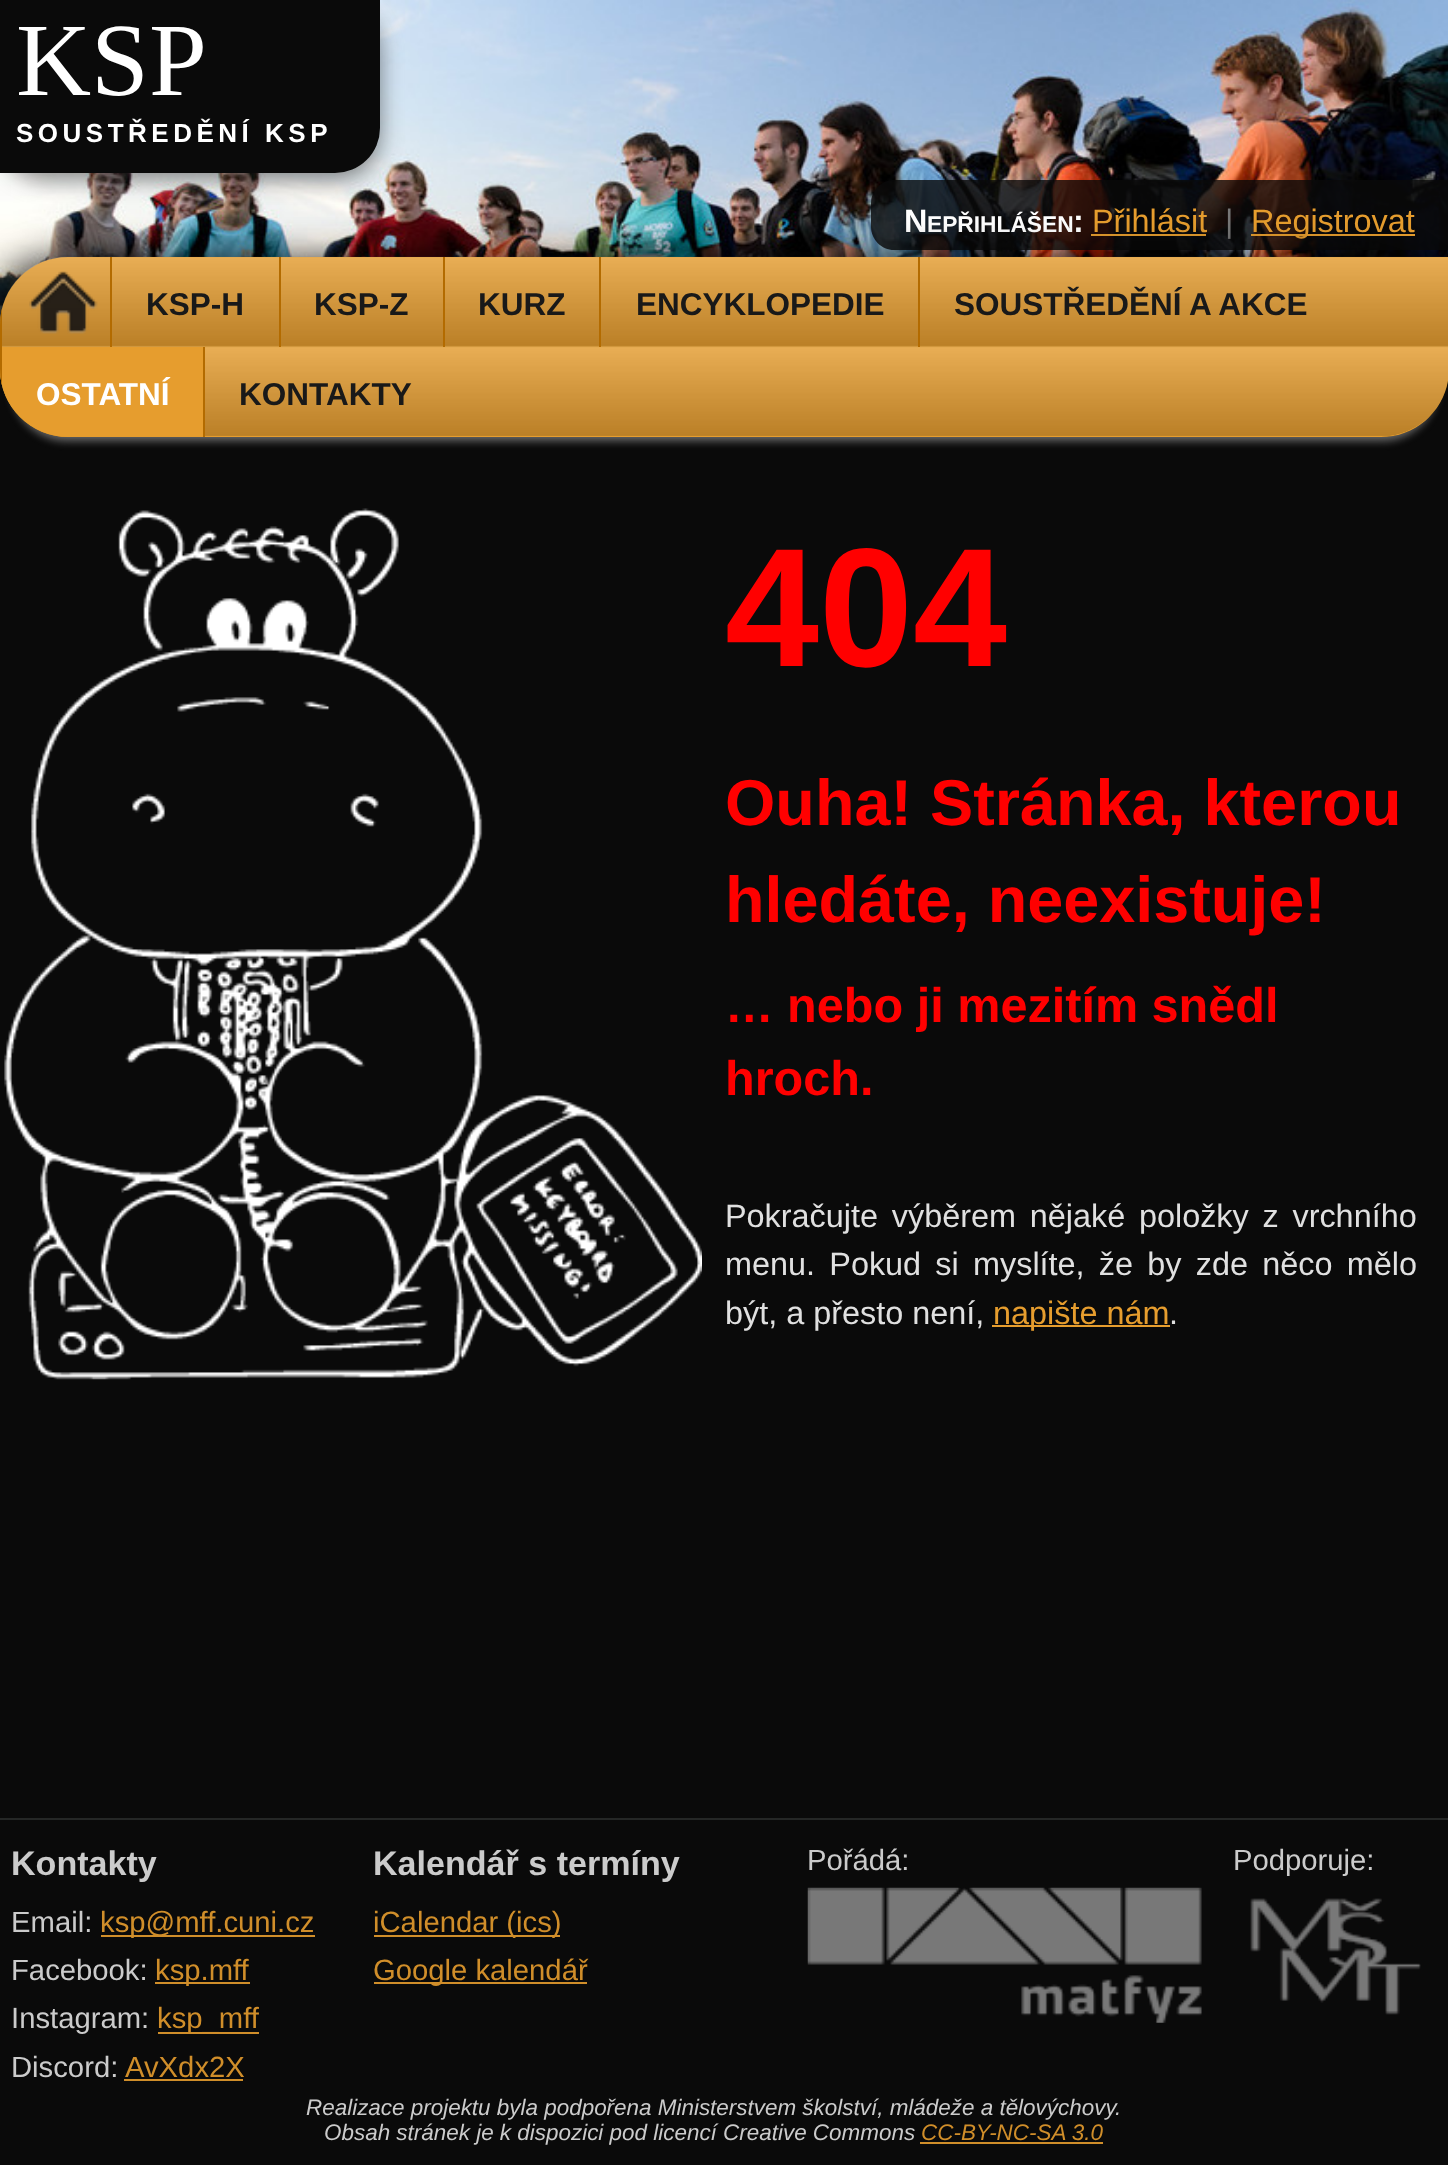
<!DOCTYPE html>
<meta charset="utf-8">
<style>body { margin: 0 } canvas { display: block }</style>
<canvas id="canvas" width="1448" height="2165"></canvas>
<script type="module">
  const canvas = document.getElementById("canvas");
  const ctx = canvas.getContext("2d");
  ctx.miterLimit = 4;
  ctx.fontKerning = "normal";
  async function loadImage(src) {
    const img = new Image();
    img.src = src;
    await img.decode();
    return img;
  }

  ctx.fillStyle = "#0a0a0a";
  ctx.fillRect(0, 0, 1448, 2165);
  ctx.fillStyle = "rgba(200, 200, 200, 0.5)";
  ctx.filter = "blur(4.5px)";
  ctx.beginPath();
  ctx.roundRect(11, 27, 1427, 414, 56);
  ctx.fill();
  ctx.filter = "none";
  ctx.drawImage(await loadImage("img1.png"), 0, 0, 1448, 437);
  ctx.fillStyle = "rgba(20, 20, 20, 0.5)";
  ctx.filter = "blur(11px)";
  ctx.beginPath();
  ctx.roundRect(0, 7, 380, 173, 45);
  ctx.fill();
  ctx.filter = "none";
  ctx.fillStyle = "#0a0a0a";
  ctx.beginPath();
  ctx.roundRect(0, 0, 380, 173, [0, 0, 45, 0]);
  ctx.fill();
  ctx.font = "104px Liberation Serif";
  ctx.fillStyle = "#ffffff";
  ctx.fillText("KSP", 16, 95);
  ctx.letterSpacing = "4.5px";
  ctx.font = "bold 26px Liberation Sans";
  ctx.fillText("SOUSTŘEDĚNÍ KSP", 16, 142);
  ctx.fillStyle = "rgba(10, 10, 10, 0.8)";
  ctx.beginPath();
  ctx.moveTo(894, 180);
  ctx.lineTo(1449, 180);
  ctx.lineTo(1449, 250);
  ctx.lineTo(894, 250);
  ctx.bezierCurveTo(881.5, 250, 871, 239.5, 871, 227);
  ctx.lineTo(871, 203);
  ctx.bezierCurveTo(871, 190.5, 881.5, 180, 894, 180);
  ctx.closePath();
  ctx.fill();
  ctx.letterSpacing = "0px";
  ctx.font = "bold 32.4px Liberation Sans";
  ctx.fillStyle = "#ffffff";
  ctx.fillText("N", 904, 232);
  ctx.font = "bold 22.75px Liberation Sans";
  ctx.fillText("EPŘIHLÁŠEN", 927, 232);
  ctx.font = "bold 32.4px Liberation Sans";
  ctx.fillText(":", 1073, 232);
  ctx.font = "32.4px Liberation Sans";
  ctx.fillStyle = "#e69d2e";
  ctx.fillText("Přihlásit", 1092, 232);
  ctx.fillRect(1091, 234, 115, 2);
  ctx.fillStyle = "#777777";
  ctx.fillText("|", 1225, 232);
  ctx.fillStyle = "#e69d2e";
  ctx.fillRect(1251, 234, 164, 2);
  ctx.fillText("Registrovat", 1251, 232);
  ctx.save();
  ctx.beginPath();
  ctx.moveTo(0, 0);
  ctx.lineTo(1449, 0);
  ctx.lineTo(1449, 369);
  ctx.bezierCurveTo(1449, 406.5, 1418.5, 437, 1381, 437);
  ctx.lineTo(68, 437);
  ctx.bezierCurveTo(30.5, 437, 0, 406.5, 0, 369);
  ctx.closePath();
  ctx.clip();
  ctx.fillStyle = "rgba(0, 0, 0, 0.75)";
  ctx.filter = "blur(17px)";
  ctx.beginPath();
  ctx.roundRect(-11, 257, 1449, 180, 68);
  ctx.fill();
  ctx.filter = "none";
  ctx.restore();
  ctx.beginPath();
  ctx.moveTo(68, 257);
  ctx.lineTo(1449, 257);
  ctx.lineTo(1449, 369);
  ctx.bezierCurveTo(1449, 406.5, 1418.5, 437, 1381, 437);
  ctx.lineTo(68, 437);
  ctx.bezierCurveTo(30.5, 437, 0, 406.5, 0, 369);
  ctx.lineTo(0, 325);
  ctx.bezierCurveTo(0, 287.5, 30.5, 257, 68, 257);
  ctx.closePath();
  ctx.fill();
  ctx.drawImage(await loadImage("img2.png"), 0, 256, 1448, 180);
  ctx.save();
  ctx.beginPath();
  ctx.moveTo(68, 257);
  ctx.lineTo(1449, 257);
  ctx.lineTo(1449, 369);
  ctx.bezierCurveTo(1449, 406.5, 1418.5, 437, 1381, 437);
  ctx.lineTo(0, 437);
  ctx.lineTo(0, 325);
  ctx.bezierCurveTo(0, 287.5, 30.5, 257, 68, 257);
  ctx.closePath();
  ctx.clip();
  ctx.fillStyle = "#b36b00";
  ctx.fillRect(0, 309, 2, 38);
  ctx.restore();
  ctx.drawImage(await loadImage("img3.png"), 29, 271, 69, 63);
  ctx.fillStyle = "#b36b00";
  ctx.fillRect(110, 257, 2, 90);
  ctx.font = "bold 31.5px Liberation Sans";
  ctx.fillStyle = "#191919";
  ctx.fillText("KSP-H", 146, 315);
  ctx.fillStyle = "#b36b00";
  ctx.fillRect(279, 257, 2, 90);
  ctx.fillStyle = "#191919";
  ctx.fillText("KSP-Z", 314, 315);
  ctx.fillStyle = "#b36b00";
  ctx.fillRect(443, 257, 2, 90);
  ctx.fillStyle = "#191919";
  ctx.fillText("KURZ", 478, 315);
  ctx.fillStyle = "#b36b00";
  ctx.fillRect(599, 257, 2, 90);
  ctx.fillStyle = "#191919";
  ctx.fillText("ENCYKLOPEDIE", 636, 315);
  ctx.fillStyle = "#b36b00";
  ctx.fillRect(918, 257, 2, 90);
  ctx.fillStyle = "#191919";
  ctx.fillText("SOUSTŘEDĚNÍ A AKCE", 954, 315);
  ctx.fillStyle = "#e69d2e";
  ctx.beginPath();
  ctx.roundRect(0, 347, 203, 90, [0, 0, 0, 68]);
  ctx.fill();
  ctx.save();
  ctx.beginPath();
  ctx.moveTo(0, 0);
  ctx.lineTo(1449, 0);
  ctx.lineTo(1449, 369);
  ctx.bezierCurveTo(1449, 406.5, 1418.5, 437, 1381, 437);
  ctx.lineTo(68, 437);
  ctx.bezierCurveTo(30.5, 437, 0, 406.5, 0, 369);
  ctx.closePath();
  ctx.clip();
  ctx.fillStyle = "#b36b00";
  ctx.fillRect(0, 347, 2, 38);
  ctx.restore();
  ctx.fillStyle = "#ffffff";
  ctx.fillText("OSTATNÍ", 36, 405);
  ctx.fillStyle = "#b36b00";
  ctx.fillRect(203, 347, 2, 90);
  ctx.fillStyle = "#191919";
  ctx.fillText("KONTAKTY", 239, 405);
  ctx.drawImage(await loadImage("img4.png"), 4, 508, 698, 872);
  ctx.font = "bold 169px Liberation Sans";
  ctx.fillStyle = "#ff0000";
  ctx.fillText("404", 725, 666);
  ctx.font = "bold 64.75px Liberation Sans";
  ctx.fillText("Ouha! Stránka, kterou", 725, 825);
  ctx.fillText("hledáte, neexistuje!", 725, 922);
  ctx.font = "bold 48.6px Liberation Sans";
  ctx.fillText("… nebo ji mezitím snědl", 725, 1022);
  ctx.fillText("hroch.", 725, 1095);
  ctx.wordSpacing = "4.75px";
  ctx.font = "32.4px Liberation Sans";
  ctx.fillStyle = "#e0e0e0";
  ctx.fillText("Pokračujte výběrem nějaké položky z vrchního", 725, 1227);
  ctx.wordSpacing = "5.25px";
  ctx.fillText("menu. Pokud si myslíte, že by zde něco mělo", 725, 1275);
  ctx.wordSpacing = "0px";
  ctx.fillText("být, a přesto není,", 725, 1324);
  ctx.fillStyle = "#e69d2e";
  ctx.fillRect(992, 1325, 178, 2);
  ctx.fillText("napište nám", 993, 1324);
  ctx.fillStyle = "#e0e0e0";
  ctx.fillText(".", 1169, 1324);
  ctx.fillStyle = "#252726";
  ctx.fillRect(0, 1818, 1448, 2);
  ctx.font = "bold 34.1px Liberation Sans";
  ctx.fillStyle = "#cbcbcb";
  ctx.fillText("Kontakty", 11, 1875);
  ctx.font = "29.25px Liberation Sans";
  ctx.fillText("Email:", 11, 1932);
  ctx.fillStyle = "#d08e2a";
  ctx.fillRect(101, 1935, 214, 2);
  ctx.fillText("ksp@mff.cuni.cz", 100, 1932);
  ctx.fillStyle = "#cbcbcb";
  ctx.fillText("Facebook:", 11, 1980);
  ctx.fillStyle = "#d08e2a";
  ctx.fillRect(155, 1982, 95, 2);
  ctx.fillText("ksp.mff", 155, 1980);
  ctx.fillStyle = "#cbcbcb";
  ctx.fillText("Instagram:", 11, 2028);
  ctx.fillStyle = "#d08e2a";
  ctx.fillRect(158, 2032, 101, 2);
  ctx.fillText("ksp_mff", 157, 2028);
  ctx.fillStyle = "#cbcbcb";
  ctx.fillText("Discord:", 11, 2077);
  ctx.fillStyle = "#d08e2a";
  ctx.fillText("AvXdx2X", 125, 2077);
  ctx.fillRect(124, 2079, 119, 2);
  ctx.font = "bold 34.1px Liberation Sans";
  ctx.fillStyle = "#cbcbcb";
  ctx.fillText("Kalendář s termíny", 373, 1875);
  ctx.fillStyle = "#d08e2a";
  ctx.fillRect(374, 1935, 186, 2);
  ctx.font = "29.25px Liberation Sans";
  ctx.fillText("iCalendar (ics)", 373, 1932);
  ctx.fillRect(374, 1982, 213, 2);
  ctx.fillText("Google kalendář", 373, 1980);
  ctx.fillStyle = "#cbcbcb";
  ctx.fillText("Pořádá:", 807, 1870);
  ctx.drawImage(await loadImage("img5.png"), 807, 1887, 395, 136);
  ctx.fillText("Podporuje:", 1233, 1870);
  ctx.drawImage(await loadImage("img6.png"), 1250, 1898, 171, 117);
  ctx.font = "italic 22.45px Liberation Sans";
  ctx.fillText("Realizace projektu byla podpořena Ministerstvem školství, mládeže a tělovýchovy.", 306, 2115);
  ctx.fillText("Obsah stránek je k dispozici pod licencí Creative Commons", 324, 2140);
  ctx.fillStyle = "#d08e2a";
  ctx.fillText("CC-BY-NC-SA 3.0", 921, 2140);
  ctx.fillRect(920, 2142, 183, 2);
</script>
